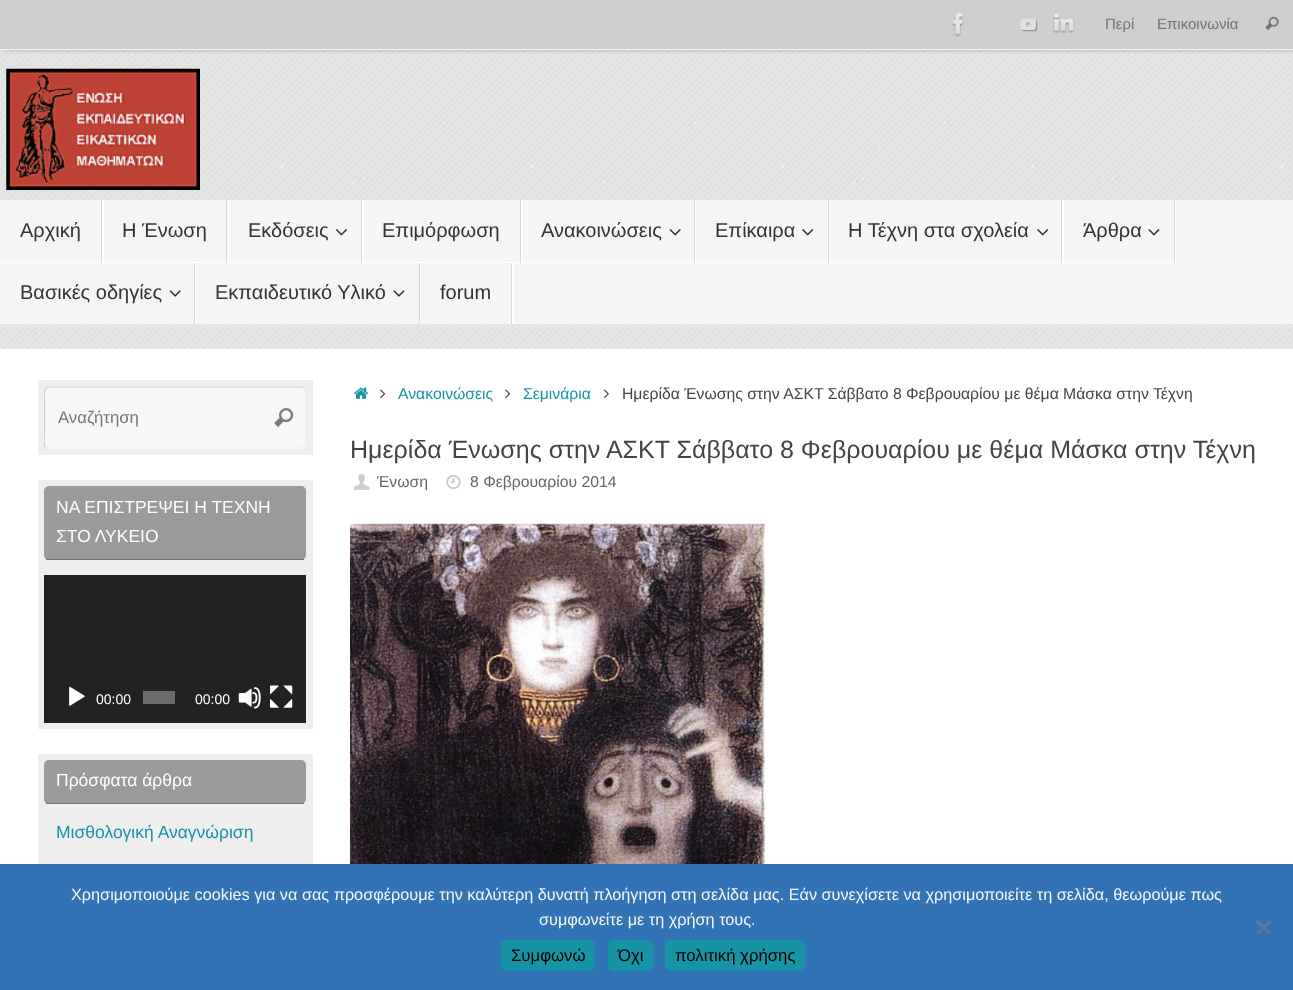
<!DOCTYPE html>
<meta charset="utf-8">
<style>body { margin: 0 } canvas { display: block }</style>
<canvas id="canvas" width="1293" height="990"></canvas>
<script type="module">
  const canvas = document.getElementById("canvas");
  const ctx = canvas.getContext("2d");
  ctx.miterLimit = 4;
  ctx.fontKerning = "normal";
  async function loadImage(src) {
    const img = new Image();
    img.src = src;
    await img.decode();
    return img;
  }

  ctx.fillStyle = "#ffffff";
  ctx.fillRect(0, 0, 1293, 990);
  ctx.drawImage(await loadImage("img1.png"), 0, 50, 1293, 299);
  ctx.fillStyle = "#a6a6a6";
  ctx.filter = "blur(2px)";
  ctx.beginPath();
  ctx.rect(4, 0, 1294, 50);
  ctx.fill();
  ctx.filter = "none";
  ctx.fillStyle = "#cecece";
  ctx.fillRect(0, 0, 1293, 49);
  ctx.fillStyle = "#f6f6f6";
  ctx.fillRect(0, 49, 1293, 1);
  ctx.drawImage(await loadImage("img2.png"), 951, 13, 13, 24);
  ctx.drawImage(await loadImage("img3.png"), 1020, 18, 18, 14);
  ctx.drawImage(await loadImage("img4.png"), 1053, 13, 22, 20);
  ctx.font = "15px Liberation Sans";
  ctx.fillStyle = "#747474";
  ctx.fillText("Περί", 1105, 29);
  ctx.fillText("Επικοινωνία", 1157, 29);
  ctx.drawImage(await loadImage("img5.png"), 1265, 16, 14, 14);
  ctx.drawImage(await loadImage("img6.png"), 6, 68, 194, 122);
  ctx.fillStyle = "#f5f5f5";
  ctx.fillRect(0, 200, 1293, 124);
  ctx.fillStyle = "#ffffff";
  ctx.beginPath();
  ctx.moveTo(1, 262);
  ctx.lineTo(1, 263);
  ctx.lineTo(104, 263);
  ctx.lineTo(104, 200);
  ctx.lineTo(102, 200);
  ctx.lineTo(102, 262);
  ctx.closePath();
  ctx.fill();
  ctx.fillStyle = "#d7d7d7";
  ctx.fillRect(101, 200, 1, 63);
  ctx.font = "20px Liberation Sans";
  ctx.fillStyle = "#333333";
  ctx.fillText("Αρχική", 20, 237);
  ctx.fillStyle = "#ffffff";
  ctx.beginPath();
  ctx.moveTo(104, 262);
  ctx.lineTo(104, 263);
  ctx.lineTo(229, 263);
  ctx.lineTo(229, 200);
  ctx.lineTo(228, 200);
  ctx.lineTo(228, 262);
  ctx.closePath();
  ctx.fill();
  ctx.fillStyle = "#d7d7d7";
  ctx.fillRect(226, 200, 1, 63);
  ctx.fillStyle = "#333333";
  ctx.fillText("Η Ένωση", 122, 237);
  ctx.fillStyle = "#ffffff";
  ctx.beginPath();
  ctx.moveTo(229, 262);
  ctx.lineTo(229, 263);
  ctx.lineTo(364, 263);
  ctx.lineTo(364, 200);
  ctx.lineTo(362, 200);
  ctx.lineTo(362, 262);
  ctx.closePath();
  ctx.fill();
  ctx.fillStyle = "#d7d7d7";
  ctx.fillRect(361, 200, 1, 63);
  ctx.fillStyle = "#333333";
  ctx.fillText("Εκδόσεις", 248, 237);
  ctx.drawImage(await loadImage("img7.png"), 335, 229, 12, 7);
  ctx.fillStyle = "#ffffff";
  ctx.beginPath();
  ctx.moveTo(364, 262);
  ctx.lineTo(364, 263);
  ctx.lineTo(523, 263);
  ctx.lineTo(523, 200);
  ctx.lineTo(521, 200);
  ctx.lineTo(521, 262);
  ctx.closePath();
  ctx.fill();
  ctx.fillStyle = "#d7d7d7";
  ctx.fillRect(520, 200, 1, 63);
  ctx.fillStyle = "#333333";
  ctx.fillText("Επιμόρφωση", 382, 237);
  ctx.fillStyle = "#ffffff";
  ctx.beginPath();
  ctx.moveTo(523, 262);
  ctx.lineTo(523, 263);
  ctx.lineTo(696, 263);
  ctx.lineTo(696, 200);
  ctx.lineTo(695, 200);
  ctx.lineTo(695, 262);
  ctx.closePath();
  ctx.fill();
  ctx.fillStyle = "#d7d7d7";
  ctx.fillRect(694, 200, 1, 63);
  ctx.fillStyle = "#333333";
  ctx.fillText("Ανακοινώσεις", 541, 237);
  ctx.drawImage(await loadImage("img8.png"), 669, 229, 12, 7);
  ctx.fillStyle = "#ffffff";
  ctx.beginPath();
  ctx.moveTo(696, 262);
  ctx.lineTo(696, 263);
  ctx.lineTo(830, 263);
  ctx.lineTo(830, 200);
  ctx.lineTo(829, 200);
  ctx.lineTo(829, 262);
  ctx.closePath();
  ctx.fill();
  ctx.fillStyle = "#d7d7d7";
  ctx.fillRect(828, 200, 1, 63);
  ctx.fillStyle = "#333333";
  ctx.fillText("Επίκαιρα", 715, 237);
  ctx.drawImage(await loadImage("img9.png"), 802, 229, 12, 7);
  ctx.fillStyle = "#ffffff";
  ctx.beginPath();
  ctx.moveTo(830, 262);
  ctx.lineTo(830, 263);
  ctx.lineTo(1064, 263);
  ctx.lineTo(1064, 200);
  ctx.lineTo(1062, 200);
  ctx.lineTo(1062, 262);
  ctx.closePath();
  ctx.fill();
  ctx.fillStyle = "#d7d7d7";
  ctx.fillRect(1061, 200, 1, 63);
  ctx.fillStyle = "#333333";
  ctx.fillText("Η Τέχνη στα σχολεία", 848, 237);
  ctx.drawImage(await loadImage("img9.png"), 1037, 229, 12, 7);
  ctx.fillStyle = "#ffffff";
  ctx.beginPath();
  ctx.moveTo(1064, 262);
  ctx.lineTo(1064, 263);
  ctx.lineTo(1176, 263);
  ctx.lineTo(1176, 200);
  ctx.lineTo(1175, 200);
  ctx.lineTo(1175, 262);
  ctx.closePath();
  ctx.fill();
  ctx.fillStyle = "#d7d7d7";
  ctx.fillRect(1174, 200, 1, 63);
  ctx.fillStyle = "#333333";
  ctx.fillText("Άρθρα", 1083, 237);
  ctx.drawImage(await loadImage("img10.png"), 1148, 229, 12, 7);
  ctx.fillStyle = "#ffffff";
  ctx.beginPath();
  ctx.moveTo(1, 324);
  ctx.lineTo(196, 324);
  ctx.lineTo(196, 263);
  ctx.lineTo(195, 263);
  ctx.lineTo(195, 324);
  ctx.closePath();
  ctx.fill();
  ctx.fillStyle = "#d7d7d7";
  ctx.fillRect(194, 263, 1, 61);
  ctx.fillStyle = "#333333";
  ctx.fillText("Βασικές οδηγίες", 20, 299);
  ctx.drawImage(await loadImage("img11.png"), 169, 290, 12, 7);
  ctx.fillStyle = "#ffffff";
  ctx.beginPath();
  ctx.moveTo(196, 324);
  ctx.lineTo(421, 324);
  ctx.lineTo(421, 263);
  ctx.lineTo(420, 263);
  ctx.lineTo(420, 324);
  ctx.closePath();
  ctx.fill();
  ctx.fillStyle = "#d7d7d7";
  ctx.fillRect(419, 263, 1, 61);
  ctx.fillStyle = "#333333";
  ctx.fillText("Εκπαιδευτικό Υλικό", 215, 299);
  ctx.drawImage(await loadImage("img12.png"), 393, 290, 12, 7);
  ctx.fillStyle = "#ffffff";
  ctx.beginPath();
  ctx.moveTo(421, 324);
  ctx.lineTo(514, 324);
  ctx.lineTo(514, 263);
  ctx.lineTo(512, 263);
  ctx.lineTo(512, 324);
  ctx.closePath();
  ctx.fill();
  ctx.fillStyle = "#d7d7d7";
  ctx.fillRect(511, 263, 1, 61);
  ctx.fillStyle = "#333333";
  ctx.fillText("forum", 440, 299);
  ctx.fillStyle = "#eeeeee";
  ctx.fillRect(38, 380, 275, 75);
  ctx.fillStyle = "#f7f7f7";
  ctx.beginPath();
  ctx.roundRect(44, 386, 262, 63, 5);
  ctx.fill();
  ctx.save();
  ctx.beginPath();
  ctx.rect(44, 386, 262, 63);
  ctx.clip();
  ctx.beginPath();
  ctx.moveTo(304.5, 388);
  ctx.bezierCurveTo(307, 391, 305.5, 398, 305.5, 400);
  ctx.lineTo(305.5, 435);
  ctx.bezierCurveTo(305.5, 438, 307.5, 448, 301, 448);
  ctx.lineTo(47.5, 448);
  ctx.lineTo(45.5, 447);
  ctx.strokeStyle = "#eeeeee";
  ctx.lineWidth = 1.2;
  ctx.stroke();
  ctx.beginPath();
  ctx.moveTo(45.5, 447);
  ctx.bezierCurveTo(43, 444, 44.5, 437, 44.5, 435);
  ctx.lineTo(44.5, 400);
  ctx.bezierCurveTo(44.5, 397, 42.5, 387, 49, 387);
  ctx.lineTo(302.5, 387);
  ctx.lineTo(304.5, 388);
  ctx.strokeStyle = "#cccccc";
  ctx.stroke();
  ctx.restore();
  ctx.font = "16.75px Liberation Sans";
  ctx.fillStyle = "#747474";
  ctx.fillText("Αναζήτηση", 58, 423);
  ctx.drawImage(await loadImage("img13.png"), 274, 408, 20, 19);
  ctx.fillStyle = "#eeeeee";
  ctx.fillRect(38, 480, 275, 249);
  ctx.fillStyle = "#9a9a9a";
  ctx.beginPath();
  ctx.roundRect(44, 486, 262, 74, 5);
  ctx.fill();
  ctx.fillStyle = "#727272";
  ctx.fillRect(46, 559, 258, 1);
  ctx.font = "17.5px Liberation Sans";
  ctx.fillStyle = "#ffffff";
  ctx.fillText("ΝΑ ΕΠΙΣΤΡΕΨΕΙ Η ΤΕΧΝΗ", 56, 513);
  ctx.fillText("ΣΤΟ ΛΥΚΕΙΟ", 56, 542);
  ctx.fillStyle = "#222222";
  ctx.fillRect(44, 575, 262, 148);
  ctx.drawImage(await loadImage("img14.png"), 69, 686, 16, 20);
  ctx.font = "14px Liberation Sans";
  ctx.fillStyle = "#ffffff";
  ctx.fillText("00:00", 96, 704);
  ctx.fillStyle = "#6b6b6b";
  ctx.fillRect(143, 691, 32, 13);
  ctx.fillStyle = "#ffffff";
  ctx.fillText("00:00", 195, 704);
  ctx.drawImage(await loadImage("img15.png"), 238, 687, 23, 22);
  ctx.drawImage(await loadImage("img16.png"), 270, 685, 23, 23);
  ctx.fillStyle = "#eeeeee";
  ctx.fillRect(38, 754, 275, 110);
  ctx.fillStyle = "#9a9a9a";
  ctx.beginPath();
  ctx.roundRect(44, 760, 262, 44, 5);
  ctx.fill();
  ctx.fillStyle = "#727272";
  ctx.fillRect(46, 803, 258, 1);
  ctx.font = "17.5px Liberation Sans";
  ctx.fillStyle = "#ffffff";
  ctx.fillText("Πρόσφατα άρθρα", 56, 786);
  ctx.fillStyle = "#1693a5";
  ctx.fillText("Μισθολογική Αναγνώριση", 56, 838);
  ctx.drawImage(await loadImage("img17.png"), 354, 387, 15, 12);
  ctx.drawImage(await loadImage("img18.png"), 380, 389, 6, 10);
  ctx.font = "15.75px Liberation Sans";
  ctx.fillText("Ανακοινώσεις", 398, 399);
  ctx.drawImage(await loadImage("img18.png"), 505, 389, 6, 10);
  ctx.fillText("Σεμινάρια", 523, 399);
  ctx.drawImage(await loadImage("img19.png"), 603, 389, 6, 10);
  ctx.fillStyle = "#444444";
  ctx.fillText("Ημερίδα Ένωσης στην ΑΣΚΤ Σάββατο 8 Φεβρουαρίου με θέμα Μάσκα στην Τέχνη", 622, 399);
  ctx.font = "25px Liberation Sans";
  ctx.fillText("Ημερίδα Ένωσης στην ΑΣΚΤ Σάββατο 8 Φεβρουαρίου με θέμα Μάσκα στην Τέχνη", 350, 458);
  ctx.drawImage(await loadImage("img20.png"), 353, 474, 17, 16);
  ctx.font = "15.75px Liberation Sans";
  ctx.fillStyle = "#666666";
  ctx.fillText("Ένωση", 377, 487);
  ctx.drawImage(await loadImage("img21.png"), 446, 474, 15, 16);
  ctx.fillText("8 Φεβρουαρίου 2014", 470, 487);
  ctx.drawImage(await loadImage("img22.png"), 350, 523, 415, 341);
  ctx.fillStyle = "#3273b5";
  ctx.fillRect(0, 864, 1293, 126);
  ctx.font = "16.25px Liberation Sans";
  ctx.fillStyle = "#f7f7f7";
  ctx.fillText("Χρησιμοποιούμε cookies για να σας προσφέρουμε την καλύτερη δυνατή πλοήγηση στη σελίδα μας. Εάν συνεχίσετε να χρησιμοποιείτε τη σελίδα, θεωρούμε πως", 71, 900);
  ctx.fillText("συμφωνείτε με τη χρήση τους.", 539, 925);
  ctx.fillStyle = "#597a9b";
  ctx.beginPath();
  ctx.moveTo(1269.5, 920);
  ctx.lineTo(1271.5, 922);
  ctx.lineTo(1258, 935);
  ctx.lineTo(1256, 933);
  ctx.closePath();
  ctx.fill();
  ctx.beginPath();
  ctx.moveTo(1256, 922);
  ctx.lineTo(1258, 920);
  ctx.lineTo(1271.5, 933);
  ctx.lineTo(1269.5, 935);
  ctx.closePath();
  ctx.fill();
  ctx.fillStyle = "#1693a5";
  ctx.beginPath();
  ctx.roundRect(501, 940, 94, 31, 5);
  ctx.fill();
  ctx.font = "16.75px Liberation Sans";
  ctx.fillStyle = "#000000";
  ctx.fillText("Συμφωνώ", 511, 961);
  ctx.fillStyle = "#1693a5";
  ctx.beginPath();
  ctx.roundRect(608, 940, 45, 31, 5);
  ctx.fill();
  ctx.fillStyle = "#000000";
  ctx.fillText("Όχι", 618, 961);
  ctx.fillStyle = "#1693a5";
  ctx.beginPath();
  ctx.roundRect(665, 940, 140, 31, 5);
  ctx.fill();
  ctx.fillStyle = "#000000";
  ctx.fillText("πολιτική χρήσης", 675, 961);
</script>
